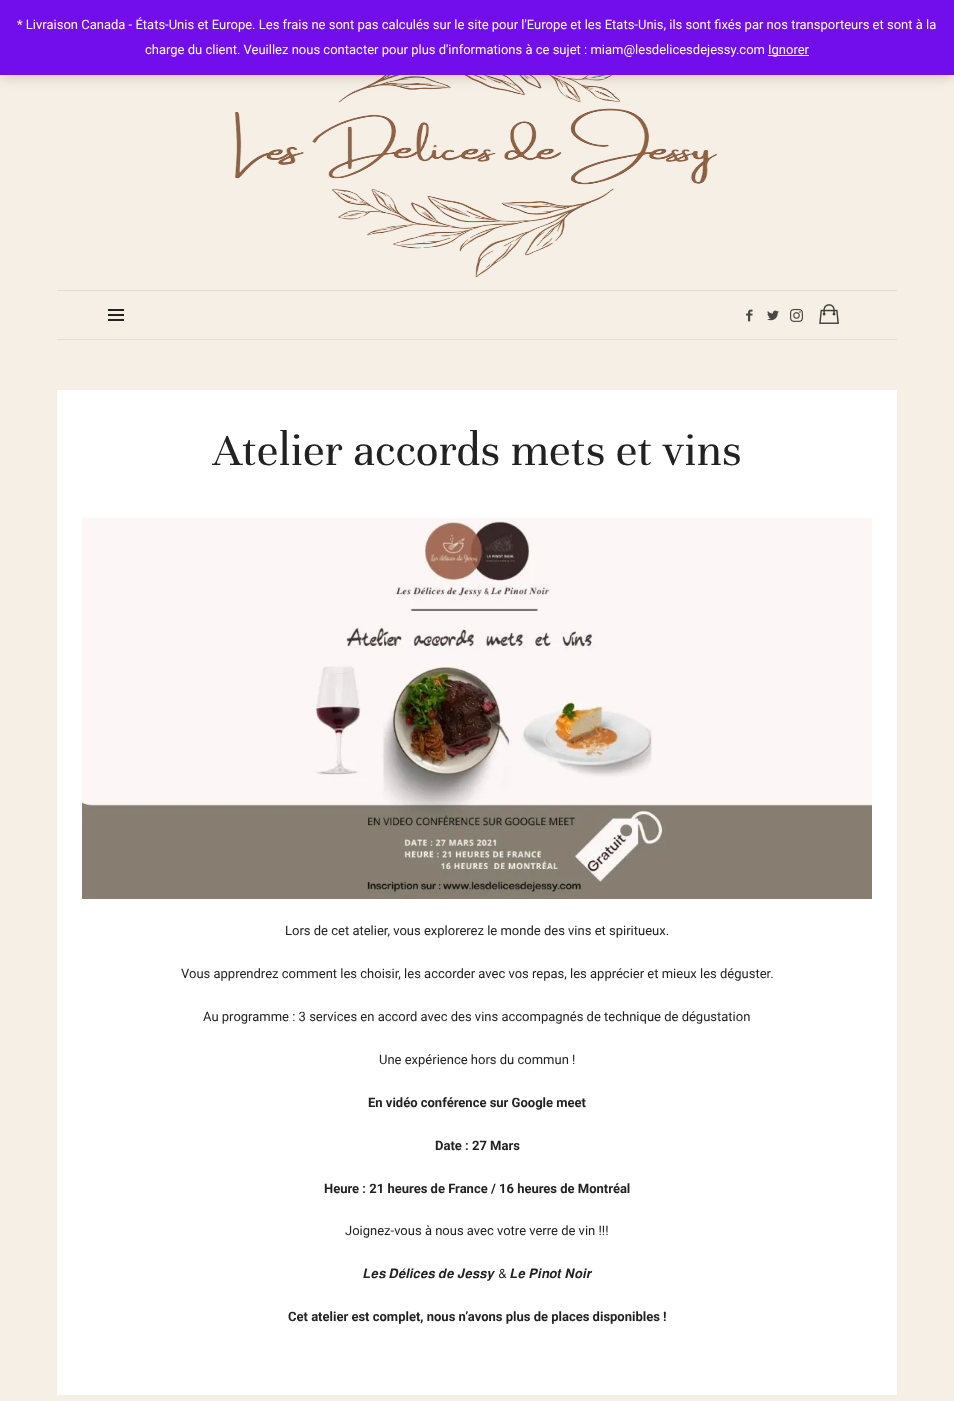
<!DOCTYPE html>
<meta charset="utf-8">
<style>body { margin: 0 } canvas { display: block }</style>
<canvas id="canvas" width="954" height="1401"></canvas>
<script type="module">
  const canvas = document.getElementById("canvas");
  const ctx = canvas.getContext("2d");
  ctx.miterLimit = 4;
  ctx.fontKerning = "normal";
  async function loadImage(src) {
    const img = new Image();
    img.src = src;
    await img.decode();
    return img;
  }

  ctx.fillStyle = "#f6efe5";
  ctx.fillRect(0, 0, 954, 1401);
  ctx.drawImage(await loadImage("img1.png"), 235, 75, 483, 203);
  ctx.fillStyle = "rgba(0, 0, 0, 0.2)";
  ctx.filter = "blur(6.5px)";
  ctx.beginPath();
  ctx.rect(0, 1, 954, 75);
  ctx.fill();
  ctx.filter = "none";
  ctx.fillStyle = "#720eec";
  ctx.fillRect(0, 0, 954, 75);
  ctx.font = "13px Roboto";
  ctx.fillStyle = "#fcfbfe";
  ctx.fillText("* Livraison Canada - États-Unis et Europe. Les frais ne sont pas calculés sur le site pour l'Europe et les Etats-Unis, ils sont fixés par nos transporteurs et sont à la", 17, 29);
  ctx.fillText("charge du client. Veuillez nous contacter pour plus d'informations à ce sujet : miam@lesdelicesdejessy.com", 145, 54);
  ctx.fillRect(768, 55, 41, 1);
  ctx.fillText("Ignorer", 768, 54);
  ctx.fillStyle = "#e2dcd3";
  ctx.fillRect(57, 290, 840, 1);
  ctx.fillRect(57, 339, 840, 1);
  ctx.fillStyle = "#222222";
  ctx.fillRect(108, 314, 16, 2);
  ctx.fillRect(108, 309, 16, 2);
  ctx.fillRect(108, 319, 16, 2);
  ctx.drawImage(await loadImage("img2.png"), 746, 309, 7, 13);
  ctx.drawImage(await loadImage("img3.png"), 767, 310, 12, 11);
  ctx.drawImage(await loadImage("img4.png"), 790, 308, 13, 14);
  ctx.drawImage(await loadImage("img5.png"), 819, 304, 20, 20);
  ctx.fillStyle = "#ffffff";
  ctx.fillRect(57, 390, 840, 1005);
  ctx.font = "48px Unna";
  ctx.fillStyle = "#222222";
  ctx.fillText("Atelier accords mets et vins", 213, 465);
  ctx.drawImage(await loadImage("img6.png"), 82, 518, 790, 381);
  ctx.font = "13px Roboto";
  ctx.fillText("Lors de cet atelier, vous explorerez le monde des vins et spiritueux.", 285, 935);
  ctx.fillText("Vous apprendrez comment les choisir, les accorder avec vos repas, les apprécier et mieux les déguster.", 181, 978);
  ctx.fillText("Au programme : 3 services en accord avec des vins accompagnés de technique de dégustation", 203, 1021);
  ctx.fillText("Une expérience hors du commun !", 379, 1064);
  ctx.font = "bold 13px Roboto";
  ctx.fillText("En vidéo conférence sur Google meet", 368, 1107);
  ctx.fillText("Date : 27 Mars", 435, 1150);
  ctx.fillText("Heure : 21 heures de France / 16 heures de Montréal", 324, 1193);
  ctx.font = "13px Roboto";
  ctx.fillText("Joignez-vous à nous avec votre verre de vin !!!", 345, 1235);
  ctx.font = "13px FreeSans";
  ctx.fillText("𝑳𝒆𝒔 𝑫𝒆́𝒍𝒊𝒄𝒆𝒔 𝒅𝒆 𝑱𝒆𝒔𝒔𝒚 & 𝑳𝒆 𝑷𝒊𝒏𝒐𝒕 𝑵𝒐𝒊𝒓", 363, 1278);
  ctx.font = "bold 13px Roboto";
  ctx.fillText("Cet atelier est complet, nous n’avons plus de places disponibles !", 288, 1321);
</script>
